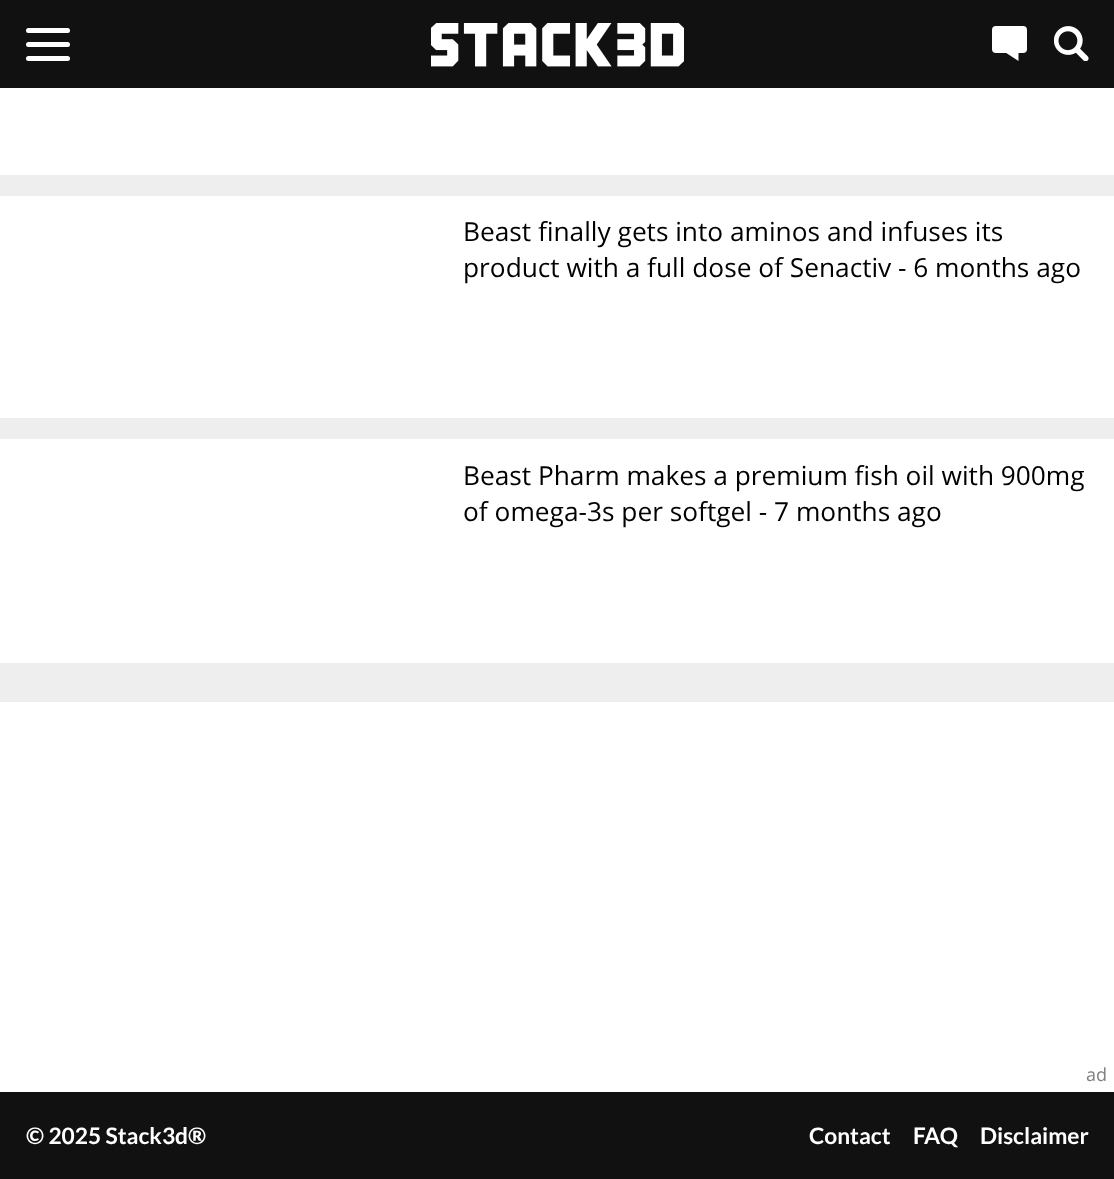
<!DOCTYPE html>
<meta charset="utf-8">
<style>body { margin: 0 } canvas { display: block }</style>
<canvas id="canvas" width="1114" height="1179"></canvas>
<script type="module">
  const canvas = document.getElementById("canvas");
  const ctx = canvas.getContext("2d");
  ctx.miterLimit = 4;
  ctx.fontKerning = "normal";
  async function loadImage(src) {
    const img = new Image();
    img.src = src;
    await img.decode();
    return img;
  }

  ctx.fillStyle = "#eeeeee";
  ctx.fillRect(0, 0, 1114, 1179);
  ctx.fillStyle = "#111111";
  ctx.fillRect(0, 0, 1114, 88);
  ctx.fillStyle = "#ffffff";
  ctx.beginPath();
  ctx.roundRect(26, 42, 44, 5, 2.5);
  ctx.fill();
  ctx.beginPath();
  ctx.roundRect(26, 28, 44, 5, 2.5);
  ctx.fill();
  ctx.beginPath();
  ctx.roundRect(26, 56, 44, 5, 2.5);
  ctx.fill();
  ctx.drawImage(await loadImage("img1.png"), 431, 23, 253, 44);
  ctx.beginPath();
  ctx.roundRect(992, 26, 35, 27, 4);
  ctx.fill();
  ctx.beginPath();
  ctx.moveTo(1018.5, 61);
  ctx.lineTo(1018.5, 52.5);
  ctx.lineTo(1005.5, 52.5);
  ctx.closePath();
  ctx.fill();
  ctx.drawImage(await loadImage("img2.png"), 1054, 26, 35, 35);
  ctx.fillRect(0, 88, 1114, 87);
  ctx.fillRect(0, 196, 1114, 222);
  ctx.font = "26.25px Open Sans";
  ctx.fillStyle = "#000000";
  ctx.fillText("Beast finally gets into aminos and infuses its", 463, 241);
  ctx.fillText("product with a full dose of Senactiv - 6 months ago", 463, 277);
  ctx.fillStyle = "#ffffff";
  ctx.fillRect(0, 439, 1114, 224);
  ctx.fillStyle = "#000000";
  ctx.fillText("Beast Pharm makes a premium fish oil with 900mg", 463, 485);
  ctx.fillText("of omega-3s per softgel - 7 months ago", 463, 521);
  ctx.fillStyle = "#ffffff";
  ctx.fillRect(0, 702, 1114, 390);
  ctx.font = "18px Open Sans";
  ctx.fillStyle = "#808080";
  ctx.fillText("ad", 1086, 1081);
  ctx.fillStyle = "#111111";
  ctx.fillRect(0, 1092, 1114, 87);
  ctx.font = "bold 22.75px Lato";
  ctx.fillStyle = "#ffffff";
  ctx.fillText("© 2025 Stack3d®", 26, 1144);
  ctx.fillText("Contact", 809, 1144);
  ctx.fillText("FAQ", 913, 1144);
  ctx.fillText("Disclaimer", 980, 1144);
</script>
